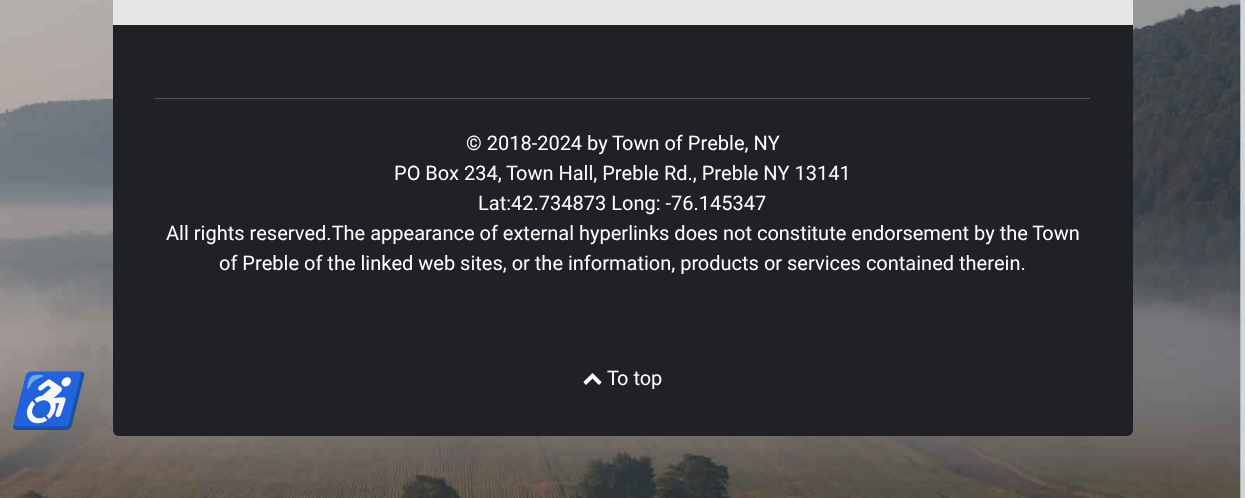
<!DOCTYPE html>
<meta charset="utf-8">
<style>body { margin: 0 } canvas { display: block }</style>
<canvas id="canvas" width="1245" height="498"></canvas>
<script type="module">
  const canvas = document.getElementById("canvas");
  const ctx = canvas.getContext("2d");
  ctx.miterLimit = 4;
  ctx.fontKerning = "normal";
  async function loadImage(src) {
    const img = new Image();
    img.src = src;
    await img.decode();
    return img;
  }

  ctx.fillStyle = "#ffffff";
  ctx.fillRect(0, 0, 1245, 498);
  ctx.drawImage(await loadImage("img1.png"), 0, 0, 1245, 498);
  ctx.fillStyle = "#e6e6e6";
  ctx.fillRect(113, 0, 1020, 25);
  ctx.fillStyle = "#1f2126";
  ctx.beginPath();
  ctx.roundRect(113, 25, 1020, 411, [0, 0, 6, 6]);
  ctx.fill();
  ctx.fillStyle = "#515357";
  ctx.fillRect(155, 98, 935, 1);
  ctx.font = "20px Heebo";
  ctx.fillStyle = "#ffffff";
  ctx.fillText("© 2018-2024 by", 466, 150);
  ctx.fillText("Town of Preble, NY", 612, 150);
  ctx.fillText("PO Box 234, Town Hall, Preble Rd., Preble NY 13141", 394, 180);
  ctx.fillText("Lat:42.734873 Long: -76.145347", 478, 210);
  ctx.fillText("All rights reserved.The appearance of external hyperlinks does not constitute endorsement by the Town", 166, 240);
  ctx.fillText("of Preble of the linked web sites, or the information, products or services contained therein.", 219, 270);
  ctx.drawImage(await loadImage("img2.png"), 583, 373, 19, 12);
  ctx.fillText("To top", 607, 385);
  ctx.letterSpacing = "-3px";
  ctx.font = "italic 53px Noto Color Emoji";
  ctx.fillText("♿", 11, 419);
</script>
